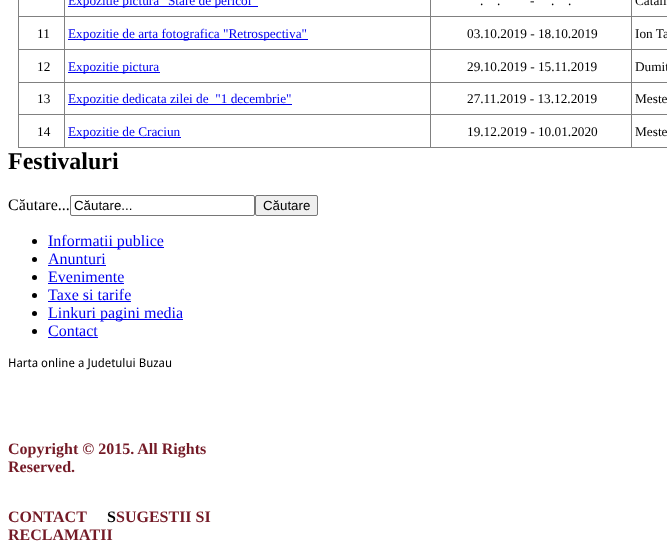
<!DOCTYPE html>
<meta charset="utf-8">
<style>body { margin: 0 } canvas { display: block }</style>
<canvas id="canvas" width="667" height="560"></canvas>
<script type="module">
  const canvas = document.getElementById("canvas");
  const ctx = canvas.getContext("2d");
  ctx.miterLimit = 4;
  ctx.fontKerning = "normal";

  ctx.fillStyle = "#ffffff";
  ctx.fillRect(0, 0, 667, 560);
  ctx.fillStyle = "#808080";
  ctx.fillRect(18, 147, 649, 1);
  ctx.fillRect(18, 0, 1, 148);
  ctx.fillRect(631, 16, 36, 1);
  ctx.fillRect(631, 49, 36, 1);
  ctx.fillRect(631, 82, 36, 1);
  ctx.fillRect(631, 114, 36, 1);
  ctx.fillRect(631, 114, 1, 34);
  ctx.fillRect(430, 114, 202, 1);
  ctx.fillRect(631, 82, 1, 33);
  ctx.fillRect(430, 82, 202, 1);
  ctx.fillRect(631, 49, 1, 34);
  ctx.fillRect(430, 49, 202, 1);
  ctx.fillRect(631, 16, 1, 34);
  ctx.fillRect(430, 16, 202, 1);
  ctx.fillRect(430, 114, 1, 34);
  ctx.fillRect(64, 114, 367, 1);
  ctx.fillRect(430, 82, 1, 33);
  ctx.fillRect(64, 82, 367, 1);
  ctx.fillRect(430, 49, 1, 34);
  ctx.fillRect(64, 49, 367, 1);
  ctx.fillRect(430, 16, 1, 34);
  ctx.fillRect(64, 16, 367, 1);
  ctx.fillRect(64, 114, 1, 34);
  ctx.fillRect(18, 114, 47, 1);
  ctx.fillRect(64, 82, 1, 33);
  ctx.fillRect(18, 82, 47, 1);
  ctx.fillRect(64, 49, 1, 34);
  ctx.fillRect(18, 49, 47, 1);
  ctx.fillRect(64, 16, 1, 34);
  ctx.fillRect(18, 16, 47, 1);
  ctx.fillRect(64, 0, 1, 17);
  ctx.fillStyle = "#0000ee";
  ctx.fillRect(68, 6, 190, 1);
  ctx.font = "13.3px Liberation Serif";
  ctx.fillText("Expozitie pictura \"Stare de pericol", 68, 5);
  ctx.fillStyle = "#808080";
  ctx.fillRect(430, 0, 1, 17);
  ctx.fillStyle = "#000000";
  ctx.fillText("-", 530, 5);
  ctx.fillText(".", 480, 5);
  ctx.fillText(".", 497, 5);
  ctx.fillText(".", 551, 5);
  ctx.fillText(".", 568, 5);
  ctx.fillStyle = "#808080";
  ctx.fillRect(631, 0, 1, 17);
  ctx.fillStyle = "#000000";
  ctx.fillText("Catali", 635, 5);
  ctx.fillText("11", 37, 38);
  ctx.fillStyle = "#0000ee";
  ctx.fillRect(68, 39, 240, 1);
  ctx.fillText("Expozitie de arta fotografica \"Retrospectiva\"", 68, 38);
  ctx.fillStyle = "#000000";
  ctx.fillText("03.10.2019 - 18.10.2019", 467, 38);
  ctx.fillText("Ion Ta", 635, 38);
  ctx.fillText("12", 37, 71);
  ctx.fillStyle = "#0000ee";
  ctx.fillRect(68, 72, 92, 1);
  ctx.fillText("Expozitie pictura", 68, 71);
  ctx.fillStyle = "#000000";
  ctx.fillText("29.10.2019 - 15.11.2019", 467, 71);
  ctx.fillText("Dumit", 635, 71);
  ctx.fillText("13", 37, 103);
  ctx.fillStyle = "#0000ee";
  ctx.fillRect(68, 104, 224, 1);
  ctx.fillText("Expozitie dedicata zilei de  \"1 decembrie\"", 68, 103);
  ctx.fillStyle = "#000000";
  ctx.fillText("27.11.2019 - 13.12.2019", 467, 103);
  ctx.fillText("Meste", 635, 103);
  ctx.fillText("14", 37, 136);
  ctx.fillStyle = "#0000ee";
  ctx.fillRect(68, 137, 113, 1);
  ctx.fillText("Expozitie de Craciun", 68, 136);
  ctx.fillStyle = "#000000";
  ctx.fillText("19.12.2019 - 10.01.2020", 467, 136);
  ctx.fillText("Meste", 635, 136);
  ctx.font = "bold 24px Liberation Serif";
  ctx.fillText("Festivaluri", 8, 169);
  ctx.font = "16px Liberation Serif";
  ctx.fillText("Căutare...", 8, 210);
  ctx.beginPath();
  ctx.roundRect(70.5, 195.5, 184, 20, 1.5);
  ctx.strokeStyle = "#767676";
  ctx.stroke();
  ctx.font = "13.3px Liberation Sans";
  ctx.fillText("Căutare...", 74, 210);
  ctx.fillStyle = "#efefef";
  ctx.beginPath();
  ctx.roundRect(255.5, 195.5, 62, 20, 1.5);
  ctx.fill();
  ctx.stroke();
  ctx.fillStyle = "#000000";
  ctx.fillText("Căutare", 263, 210);
  ctx.beginPath();
  ctx.arc(34.5, 241.5, 2.5, 0, Math.PI * 2);
  ctx.fill();
  ctx.fillStyle = "#0000ee";
  ctx.fillRect(48, 247, 116, 1);
  ctx.font = "16px Liberation Serif";
  ctx.fillText("Informatii publice", 48, 246);
  ctx.fillStyle = "#000000";
  ctx.beginPath();
  ctx.arc(34.5, 259.5, 2.5, 0, Math.PI * 2);
  ctx.fill();
  ctx.fillStyle = "#0000ee";
  ctx.fillText("Anunturi", 48, 264);
  ctx.fillRect(48, 265, 58, 1);
  ctx.fillStyle = "#000000";
  ctx.beginPath();
  ctx.arc(34.5, 277.5, 2.5, 0, Math.PI * 2);
  ctx.fill();
  ctx.fillStyle = "#0000ee";
  ctx.fillText("Evenimente", 48, 282);
  ctx.fillRect(48, 283, 76, 1);
  ctx.fillStyle = "#000000";
  ctx.beginPath();
  ctx.arc(34.5, 295.5, 2.5, 0, Math.PI * 2);
  ctx.fill();
  ctx.fillStyle = "#0000ee";
  ctx.fillText("Taxe si tarife", 48, 300);
  ctx.fillRect(48, 301, 83, 1);
  ctx.fillStyle = "#000000";
  ctx.beginPath();
  ctx.arc(34.5, 313.5, 2.5, 0, Math.PI * 2);
  ctx.fill();
  ctx.fillStyle = "#0000ee";
  ctx.fillRect(48, 319, 135, 1);
  ctx.fillText("Linkuri pagini media", 48, 318);
  ctx.fillStyle = "#000000";
  ctx.beginPath();
  ctx.arc(34.5, 331.5, 2.5, 0, Math.PI * 2);
  ctx.fill();
  ctx.fillStyle = "#0000ee";
  ctx.fillText("Contact", 48, 336);
  ctx.fillRect(48, 337, 50, 1);
  ctx.font = "12px Droid Sans";
  ctx.fillStyle = "#000000";
  ctx.fillText("Harta online a Judetului Buzau", 8, 367);
  ctx.font = "bold 16px Liberation Serif";
  ctx.fillStyle = "#741a26";
  ctx.fillText("Copyright © 2015. All Rights", 8, 454);
  ctx.fillText("Reserved.", 8, 472);
  ctx.fillText("CONTACT", 8, 522);
  ctx.fillStyle = "#000000";
  ctx.fillText("S", 107, 522);
  ctx.fillStyle = "#741a26";
  ctx.fillText("SUGESTII SI", 116, 522);
  ctx.fillText("RECLAMATII", 8, 540);
</script>
